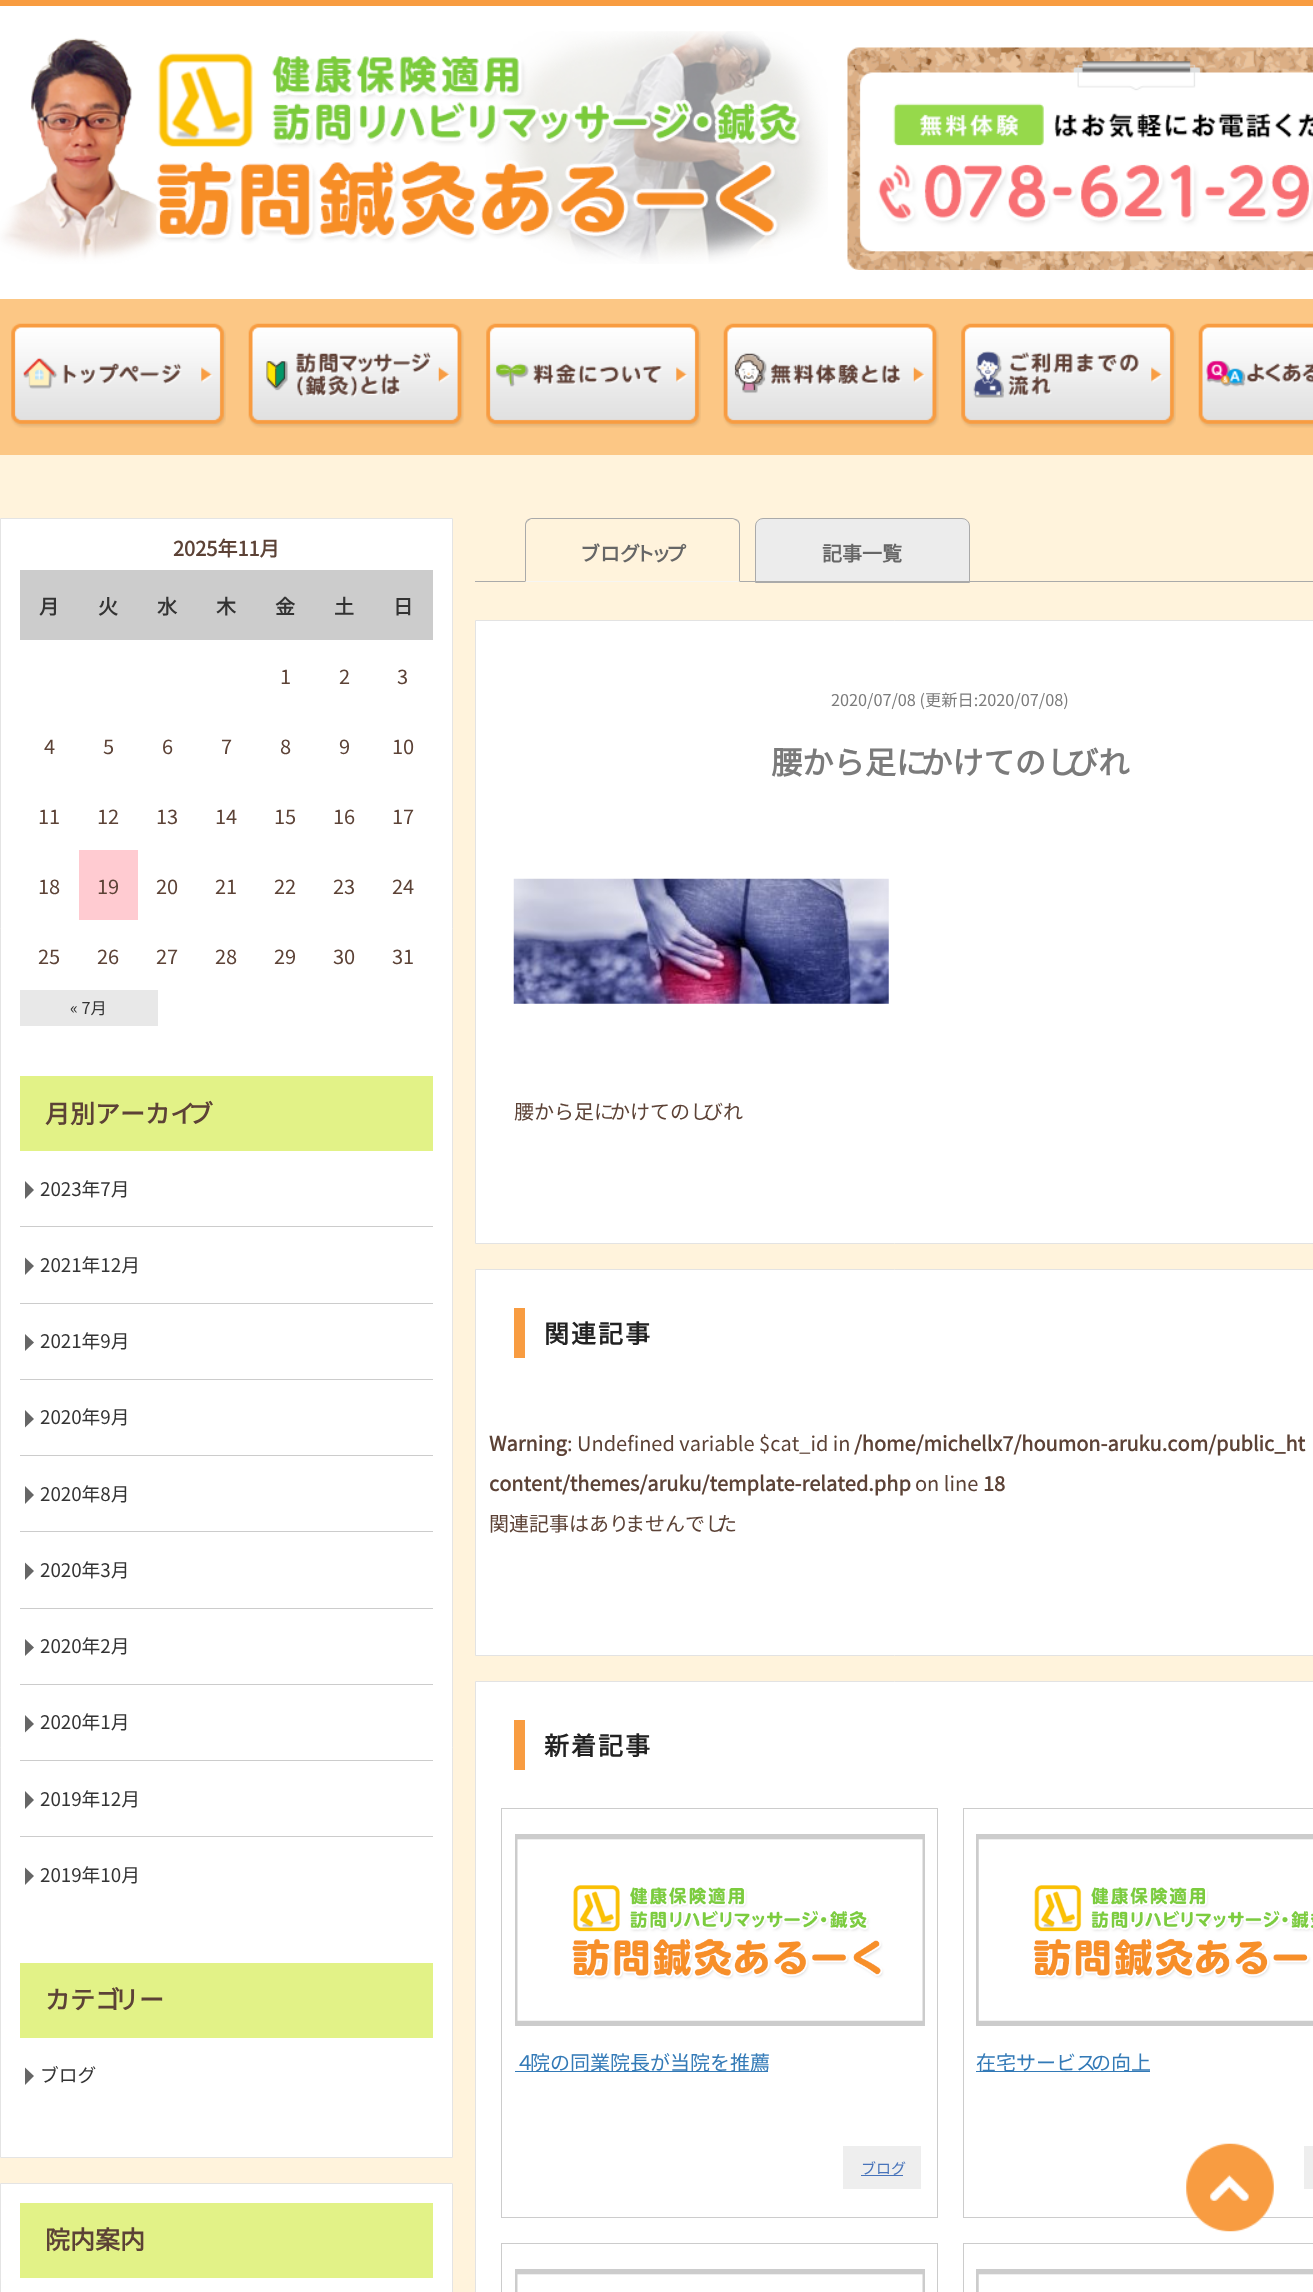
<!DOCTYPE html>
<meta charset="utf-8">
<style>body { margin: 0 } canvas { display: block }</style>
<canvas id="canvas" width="1313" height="2292"></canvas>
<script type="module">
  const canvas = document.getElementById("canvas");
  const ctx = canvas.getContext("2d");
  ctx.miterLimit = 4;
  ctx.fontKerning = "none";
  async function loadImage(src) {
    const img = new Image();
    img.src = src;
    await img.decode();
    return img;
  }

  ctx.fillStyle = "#fff3dc";
  ctx.fillRect(0, 0, 1313, 2292);
  ctx.fillStyle = "#ffffff";
  ctx.fillRect(0, 6, 1313, 293);
  ctx.fillStyle = "#f89c41";
  ctx.fillRect(0, 0, 1313, 6);
  ctx.drawImage(await loadImage("img1.png"), 0, 31, 828, 233);
  ctx.drawImage(await loadImage("img2.png"), 847, 47, 466, 223);
  ctx.fillStyle = "#fcc785";
  ctx.fillRect(0, 299, 1313, 156);
  ctx.drawImage(await loadImage("img3.png"), 11, 323, 215, 105);
  ctx.drawImage(await loadImage("img4.png"), 248, 323, 216, 105);
  ctx.drawImage(await loadImage("img5.png"), 486, 323, 215, 105);
  ctx.drawImage(await loadImage("img6.png"), 723, 323, 216, 105);
  ctx.drawImage(await loadImage("img7.png"), 961, 323, 215, 105);
  ctx.drawImage(await loadImage("img8.png"), 1198, 323, 115, 105);
  ctx.fillStyle = "#ffffff";
  ctx.beginPath();
  ctx.rect(0.5, 518.5, 452, 1639);
  ctx.fill();
  ctx.strokeStyle = "#e4e4e4";
  ctx.stroke();
  ctx.font = "bold 20px Noto Sans JP";
  ctx.fillStyle = "#5c4236";
  ctx.fillText("2025年11月", 173, 556);
  ctx.fillStyle = "#cccccc";
  ctx.fillRect(20, 570, 413, 70);
  ctx.fillStyle = "#333333";
  ctx.fillText("月", 39, 614);
  ctx.fillText("火", 98, 614);
  ctx.fillText("水", 157, 614);
  ctx.fillText("木", 216, 614);
  ctx.fillText("金", 275, 614);
  ctx.fillText("土", 334, 614);
  ctx.fillText("日", 393, 614);
  ctx.font = "100 20px Noto Sans JP";
  ctx.fillStyle = "#5c4236";
  ctx.fillText("1", 280, 684);
  ctx.fillText("2", 339, 684);
  ctx.fillText("3", 397, 684);
  ctx.fillText("4", 44, 754);
  ctx.fillText("5", 103, 754);
  ctx.fillText("6", 162, 754);
  ctx.fillText("7", 221, 754);
  ctx.fillText("8", 280, 754);
  ctx.fillText("9", 339, 754);
  ctx.fillText("10", 392, 754);
  ctx.fillText("11", 38, 824);
  ctx.fillText("12", 97, 824);
  ctx.fillText("13", 156, 824);
  ctx.fillText("14", 215, 824);
  ctx.fillText("15", 274, 824);
  ctx.fillText("16", 333, 824);
  ctx.fillText("17", 392, 824);
  ctx.fillText("18", 38, 894);
  ctx.fillStyle = "#ffcbd1";
  ctx.fillRect(79, 850, 59, 70);
  ctx.fillStyle = "#5c4236";
  ctx.fillText("19", 97, 894);
  ctx.fillText("20", 156, 894);
  ctx.fillText("21", 215, 894);
  ctx.fillText("22", 274, 894);
  ctx.fillText("23", 333, 894);
  ctx.fillText("24", 392, 894);
  ctx.fillText("25", 38, 964);
  ctx.fillText("26", 97, 964);
  ctx.fillText("27", 156, 964);
  ctx.fillText("28", 215, 964);
  ctx.fillText("29", 274, 964);
  ctx.fillText("30", 333, 964);
  ctx.fillText("31", 392, 964);
  ctx.fillStyle = "#e8e8e8";
  ctx.fillRect(20, 990, 138, 36);
  ctx.font = "100 16.25px Noto Sans JP";
  ctx.fillStyle = "#333333";
  ctx.fillText("« 7月", 70, 1014);
  ctx.fillStyle = "#e2f287";
  ctx.fillRect(20, 1076, 413, 75);
  ctx.font = "bold 25px Noto Sans JP";
  ctx.fillStyle = "#5c4236";
  ctx.fillText("月別アーカイ", 45, 1123);
  ctx.fillText("ブ", 188, 1123);
  ctx.fillStyle = "#cccccc";
  ctx.fillRect(20, 1226, 413, 1);
  ctx.fillStyle = "#666666";
  ctx.beginPath();
  ctx.moveTo(25, 1199);
  ctx.lineTo(25, 1181);
  ctx.lineTo(34, 1190);
  ctx.closePath();
  ctx.fill();
  ctx.font = "100 18.75px Noto Sans JP";
  ctx.fillStyle = "#333333";
  ctx.fillText("2023年7月", 40, 1196);
  ctx.fillStyle = "#cccccc";
  ctx.fillRect(20, 1303, 413, 1);
  ctx.fillStyle = "#666666";
  ctx.beginPath();
  ctx.moveTo(25, 1275);
  ctx.lineTo(25, 1257.5);
  ctx.lineTo(34, 1266);
  ctx.closePath();
  ctx.fill();
  ctx.fillStyle = "#333333";
  ctx.fillText("2021年12月", 40, 1272);
  ctx.fillStyle = "#cccccc";
  ctx.fillRect(20, 1379, 413, 1);
  ctx.fillStyle = "#666666";
  ctx.beginPath();
  ctx.moveTo(25, 1351);
  ctx.lineTo(25, 1334);
  ctx.lineTo(34, 1342.5);
  ctx.closePath();
  ctx.fill();
  ctx.fillStyle = "#333333";
  ctx.fillText("2021年9月", 40, 1348);
  ctx.fillStyle = "#cccccc";
  ctx.fillRect(20, 1455, 413, 1);
  ctx.fillStyle = "#666666";
  ctx.beginPath();
  ctx.moveTo(25, 1427.5);
  ctx.lineTo(25, 1410);
  ctx.lineTo(34, 1419);
  ctx.closePath();
  ctx.fill();
  ctx.fillStyle = "#333333";
  ctx.fillText("2020年9月", 40, 1424);
  ctx.fillStyle = "#cccccc";
  ctx.fillRect(20, 1531, 413, 1);
  ctx.fillStyle = "#666666";
  ctx.beginPath();
  ctx.moveTo(25, 1504);
  ctx.lineTo(25, 1486);
  ctx.lineTo(34, 1495);
  ctx.closePath();
  ctx.fill();
  ctx.fillStyle = "#333333";
  ctx.fillText("2020年8月", 40, 1501);
  ctx.fillStyle = "#cccccc";
  ctx.fillRect(20, 1608, 413, 1);
  ctx.fillStyle = "#666666";
  ctx.beginPath();
  ctx.moveTo(25, 1580);
  ctx.lineTo(25, 1562.5);
  ctx.lineTo(34, 1571);
  ctx.closePath();
  ctx.fill();
  ctx.fillStyle = "#333333";
  ctx.fillText("2020年3月", 40, 1577);
  ctx.fillStyle = "#cccccc";
  ctx.fillRect(20, 1684, 413, 1);
  ctx.fillStyle = "#666666";
  ctx.beginPath();
  ctx.moveTo(25, 1656);
  ctx.lineTo(25, 1639);
  ctx.lineTo(34, 1647.5);
  ctx.closePath();
  ctx.fill();
  ctx.fillStyle = "#333333";
  ctx.fillText("2020年2月", 40, 1653);
  ctx.fillStyle = "#cccccc";
  ctx.fillRect(20, 1760, 413, 1);
  ctx.fillStyle = "#666666";
  ctx.beginPath();
  ctx.moveTo(25, 1732.5);
  ctx.lineTo(25, 1715);
  ctx.lineTo(34, 1724);
  ctx.closePath();
  ctx.fill();
  ctx.fillStyle = "#333333";
  ctx.fillText("2020年1月", 40, 1729);
  ctx.fillStyle = "#cccccc";
  ctx.fillRect(20, 1836, 413, 1);
  ctx.fillStyle = "#666666";
  ctx.beginPath();
  ctx.moveTo(25, 1809);
  ctx.lineTo(25, 1791);
  ctx.lineTo(34, 1800);
  ctx.closePath();
  ctx.fill();
  ctx.fillStyle = "#333333";
  ctx.fillText("2019年12月", 40, 1806);
  ctx.fillStyle = "#666666";
  ctx.beginPath();
  ctx.moveTo(25, 1885);
  ctx.lineTo(25, 1867.5);
  ctx.lineTo(34, 1876);
  ctx.closePath();
  ctx.fill();
  ctx.fillStyle = "#333333";
  ctx.fillText("2019年10月", 40, 1882);
  ctx.fillStyle = "#e2f287";
  ctx.fillRect(20, 1963, 413, 75);
  ctx.font = "bold 25px Noto Sans JP";
  ctx.fillStyle = "#5c4236";
  ctx.fillText("カテゴ", 45, 2009);
  ctx.fillText("リー", 114, 2009);
  ctx.fillStyle = "#666666";
  ctx.beginPath();
  ctx.moveTo(25, 2085);
  ctx.lineTo(25, 2067.5);
  ctx.lineTo(34, 2076);
  ctx.closePath();
  ctx.fill();
  ctx.font = "100 18.75px Noto Sans JP";
  ctx.fillStyle = "#333333";
  ctx.fillText("ブログ", 40, 2082);
  ctx.fillStyle = "#ffffff";
  ctx.beginPath();
  ctx.rect(0.5, 2183.5, 452, 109);
  ctx.fill();
  ctx.stroke();
  ctx.fillStyle = "#e2f287";
  ctx.fillRect(20, 2203, 413, 75);
  ctx.font = "bold 25px Noto Sans JP";
  ctx.fillStyle = "#5c4236";
  ctx.fillText("院内案内", 45, 2249);
  ctx.fillStyle = "#ececec";
  ctx.beginPath();
  ctx.roundRect(755.5, 518.5, 214, 64, [7.5, 7.5, 0, 0]);
  ctx.fill();
  ctx.strokeStyle = "#aaaaaa";
  ctx.stroke();
  ctx.fillStyle = "#aaaaaa";
  ctx.fillRect(475, 581, 838, 1);
  ctx.fillStyle = "#fff3dc";
  ctx.beginPath();
  ctx.roundRect(525, 518, 215, 65, [8, 8, 0, 0]);
  ctx.fill();
  ctx.fillStyle = "#aaaaaa";
  ctx.beginPath();
  ctx.moveTo(532, 518);
  ctx.bezierCurveTo(530, 518, 528, 519, 527, 520);
  ctx.lineTo(528, 521);
  ctx.lineTo(531, 519);
  ctx.lineTo(733, 519);
  ctx.lineTo(737, 521);
  ctx.lineTo(738, 520);
  ctx.bezierCurveTo(736, 519, 734, 518, 732, 518);
  ctx.closePath();
  ctx.fill();
  ctx.beginPath();
  ctx.moveTo(738, 520);
  ctx.bezierCurveTo(739, 521, 740, 523, 740, 525);
  ctx.lineTo(740, 582);
  ctx.lineTo(738, 581);
  ctx.lineTo(739, 581);
  ctx.lineTo(739, 525);
  ctx.bezierCurveTo(739, 523, 738, 522, 737, 521);
  ctx.closePath();
  ctx.fill();
  ctx.fillStyle = "#f6f5f3";
  ctx.beginPath();
  ctx.moveTo(740, 582);
  ctx.lineTo(526, 582);
  ctx.lineTo(526, 581);
  ctx.lineTo(738, 581);
  ctx.closePath();
  ctx.fill();
  ctx.fillStyle = "#aaaaaa";
  ctx.beginPath();
  ctx.moveTo(525, 525);
  ctx.lineTo(525, 582);
  ctx.lineTo(526, 581);
  ctx.lineTo(526, 525);
  ctx.bezierCurveTo(526, 523, 527, 522, 528, 521);
  ctx.lineTo(527, 520);
  ctx.bezierCurveTo(526, 521, 525, 523, 525, 525);
  ctx.closePath();
  ctx.fill();
  ctx.font = "bold 20px Noto Sans JP";
  ctx.fillStyle = "#666666";
  ctx.fillText("ブログ", 580, 561);
  ctx.fillText("ト", 635, 561);
  ctx.fillText("ッ", 651, 561);
  ctx.fillText("プ", 666, 561);
  ctx.fillText("記事一覧", 822, 561);
  ctx.fillStyle = "#ffffff";
  ctx.beginPath();
  ctx.rect(475.5, 620.5, 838, 623);
  ctx.fill();
  ctx.strokeStyle = "#e3e3e3";
  ctx.stroke();
  ctx.font = "100 16.25px Noto Sans JP";
  ctx.fillStyle = "#7b7b7b";
  ctx.fillText("2020/07/08 (更新日:2020/07/08)", 831, 706);
  ctx.font = "bold 31.25px Noto Sans JP";
  ctx.fillText("腰から足に", 771, 774);
  ctx.fillText("かけてのし", 921, 774);
  ctx.fillText("びれ", 1067, 774);
  ctx.drawImage(await loadImage("img9.png"), 513, 878, 376, 126);
  ctx.font = "100 20px Noto Sans JP";
  ctx.fillStyle = "#5c4236";
  ctx.fillText("腰から足に", 514, 1119);
  ctx.fillText("かけてのし", 610, 1119);
  ctx.fillText("びれ", 703, 1119);
  ctx.fillStyle = "#ffffff";
  ctx.beginPath();
  ctx.rect(475.5, 1269.5, 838, 386);
  ctx.fill();
  ctx.stroke();
  ctx.fillStyle = "#f89c41";
  ctx.fillRect(514, 1308, 11, 50);
  ctx.letterSpacing = "2px";
  ctx.font = "bold 25px Noto Sans JP";
  ctx.fillStyle = "#222222";
  ctx.fillText("関連記事", 544, 1343);
  ctx.letterSpacing = "0px";
  ctx.font = "bold 20px Noto Sans JP";
  ctx.fillStyle = "#5c4236";
  ctx.fillText("Warning", 489, 1451);
  ctx.font = "100 20px Noto Sans JP";
  ctx.fillText(": Undefined variable $cat_id in", 567, 1451);
  ctx.font = "bold 20px Noto Sans JP";
  ctx.fillText("/home/michellx7/houmon-aruku.com/public_ht", 854, 1451);
  ctx.fillText("content/themes/aruku/template-related.php", 489, 1491);
  ctx.font = "100 20px Noto Sans JP";
  ctx.fillText("on line", 915, 1491);
  ctx.font = "bold 20px Noto Sans JP";
  ctx.fillText("18", 983, 1491);
  ctx.font = "100 20px Noto Sans JP";
  ctx.fillText("関連記事はあり", 489, 1531);
  ctx.fillText("ませんでし", 625, 1531);
  ctx.fillText("た", 717, 1531);
  ctx.fillStyle = "#ffffff";
  ctx.beginPath();
  ctx.rect(475.5, 1681.5, 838, 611);
  ctx.fill();
  ctx.stroke();
  ctx.fillStyle = "#f89c41";
  ctx.fillRect(514, 1720, 11, 50);
  ctx.letterSpacing = "2px";
  ctx.font = "bold 25px Noto Sans JP";
  ctx.fillStyle = "#222222";
  ctx.fillText("新着記事", 544, 1755);
  ctx.strokeStyle = "#cccccc";
  ctx.strokeRect(501.5, 1808.5, 436, 409);
  ctx.lineWidth = 3;
  ctx.strokeRect(516.5, 1835.5, 407, 189);
  ctx.drawImage(await loadImage("img10.png"), 517, 1837, 406, 186);
  ctx.fillStyle = "#337ab7";
  ctx.fillRect(515, 2071, 253, 1);
  ctx.letterSpacing = "0px";
  ctx.font = "100 20px Noto Sans JP";
  ctx.fillText("４", 515, 2070);
  ctx.fillText("院の同業院長が当院を推薦", 530, 2070);
  ctx.fillStyle = "#eeeeee";
  ctx.fillRect(843, 2146, 78, 43);
  ctx.font = "100 15px Noto Sans JP";
  ctx.fillStyle = "#4773ba";
  ctx.fillText("ブログ", 861, 2174);
  ctx.fillRect(861, 2175, 42, 1);
  ctx.lineWidth = 1;
  ctx.strokeRect(963.5, 1808.5, 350, 409);
  ctx.lineWidth = 3;
  ctx.strokeRect(977.5, 1835.5, 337, 189);
  ctx.drawImage(await loadImage("img11.png"), 978, 1837, 335, 186);
  ctx.fillStyle = "#337ab7";
  ctx.fillRect(976, 2071, 174, 1);
  ctx.font = "100 20px Noto Sans JP";
  ctx.fillText("在宅サービス", 976, 2070);
  ctx.fillText("の向上", 1091, 2070);
  ctx.fillStyle = "#eeeeee";
  ctx.fillRect(1304, 2146, 9, 43);
  ctx.lineWidth = 1;
  ctx.strokeRect(501.5, 2243.5, 436, 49);
  ctx.lineWidth = 3;
  ctx.strokeRect(516.5, 2270.5, 407, 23);
  ctx.drawImage(await loadImage("img12.png"), 517, 2272, 406, 20);
  ctx.lineWidth = 1;
  ctx.strokeRect(963.5, 2243.5, 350, 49);
  ctx.lineWidth = 3;
  ctx.strokeRect(977.5, 2270.5, 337, 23);
  ctx.drawImage(await loadImage("img13.png"), 978, 2272, 335, 20);
  ctx.drawImage(await loadImage("img14.png"), 1186, 2143, 88, 89);
</script>
